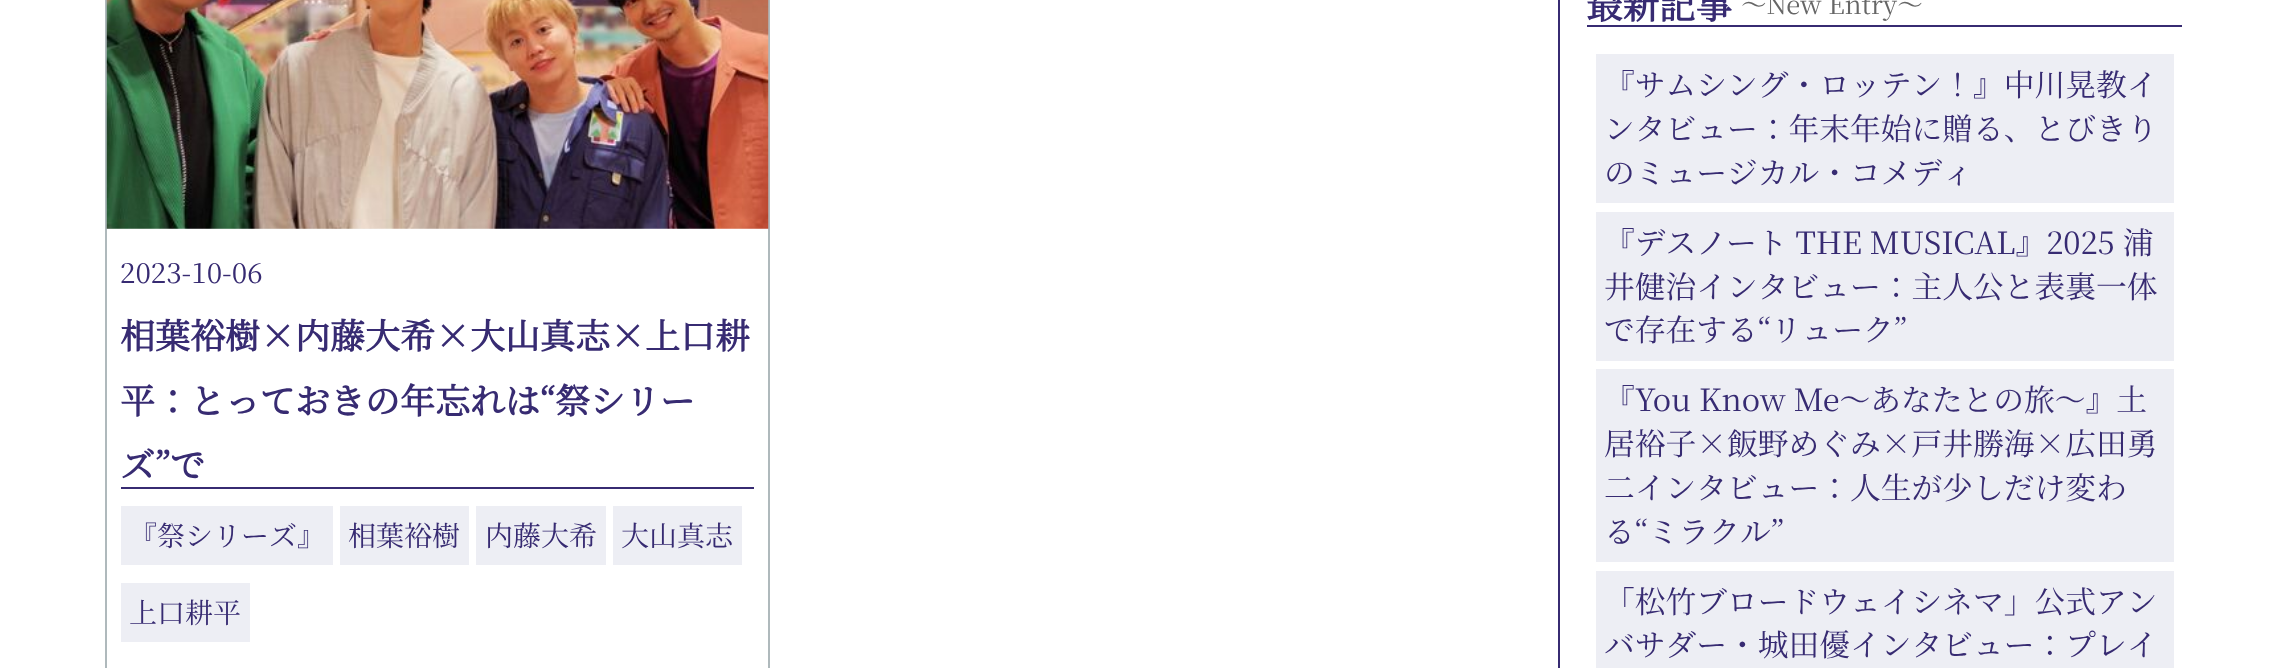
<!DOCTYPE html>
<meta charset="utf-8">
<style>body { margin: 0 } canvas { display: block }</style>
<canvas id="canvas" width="2273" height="668"></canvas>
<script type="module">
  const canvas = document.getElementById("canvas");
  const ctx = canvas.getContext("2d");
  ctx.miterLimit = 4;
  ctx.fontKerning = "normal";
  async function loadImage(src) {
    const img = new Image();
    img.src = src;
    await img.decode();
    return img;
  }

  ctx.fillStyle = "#ffffff";
  ctx.fillRect(0, 0, 2273, 668);
  ctx.fillStyle = "#372b72";
  ctx.fillRect(1558, 0, 2, 668);
  ctx.drawImage(await loadImage("img1.png"), 107, 228, 661, 1);
  ctx.strokeStyle = "#afb9bc";
  ctx.lineWidth = 2;
  ctx.strokeRect(106, -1, 663, 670);
  ctx.drawImage(await loadImage("img2.png"), 106, 0, 663, 229);
  ctx.font = "200 28px Noto Serif JP";
  ctx.fillText("2023-10-06", 120, 283);
  ctx.fillRect(121, 487, 633, 2);
  ctx.font = "bold 35px Noto Serif JP";
  ctx.fillText("相葉裕樹×内藤大希×大山真志×上口耕", 120, 349);
  ctx.fillText("平：とっておきの年忘れは“祭シリー", 120, 414);
  ctx.fillText("ズ”で", 120, 478);
  ctx.fillStyle = "#edeef4";
  ctx.fillRect(121, 506, 212, 59);
  ctx.font = "200 28px Noto Serif JP";
  ctx.fillStyle = "#372b72";
  ctx.fillText("『祭シリーズ』", 129, 546);
  ctx.fillStyle = "#edeef4";
  ctx.fillRect(340, 506, 129, 59);
  ctx.fillStyle = "#372b72";
  ctx.fillText("相葉裕樹", 348, 546);
  ctx.fillStyle = "#edeef4";
  ctx.fillRect(476, 506, 130, 59);
  ctx.fillStyle = "#372b72";
  ctx.fillText("内藤大希", 485, 546);
  ctx.fillStyle = "#edeef4";
  ctx.fillRect(613, 506, 129, 59);
  ctx.fillStyle = "#372b72";
  ctx.fillText("大山真志", 621, 546);
  ctx.fillStyle = "#edeef4";
  ctx.fillRect(121, 583, 129, 59);
  ctx.fillStyle = "#372b72";
  ctx.fillText("上口耕平", 129, 623);
  ctx.fillRect(1587, 25, 595, 2);
  ctx.font = "bold 36.5px Noto Serif JP";
  ctx.fillText("最新記事", 1586, 19);
  ctx.font = "200 25.5px Noto Serif JP";
  ctx.fillStyle = "#666666";
  ctx.fillText("～New Entry～", 1741, 14);
  ctx.fillStyle = "#edeef4";
  ctx.fillRect(1596, 54, 578, 149);
  ctx.font = "200 30.75px Noto Serif JP";
  ctx.fillStyle = "#372b72";
  ctx.fillText("『サムシング・ロッテン！』中川晃教イ", 1604, 96);
  ctx.fillText("ンタビュー：年末年始に贈る、とびきり", 1604, 140);
  ctx.fillText("のミュージカル・コメディ", 1604, 184);
  ctx.fillStyle = "#edeef4";
  ctx.fillRect(1596, 212, 578, 149);
  ctx.fillStyle = "#372b72";
  ctx.fillText("『デスノート THE MUSICAL』2025 浦", 1604, 254);
  ctx.fillText("井健治インタビュー：主人公と表裏一体", 1604, 298);
  ctx.fillText("で存在する“リューク”", 1604, 341);
  ctx.fillStyle = "#edeef4";
  ctx.fillRect(1596, 369, 578, 193);
  ctx.fillStyle = "#372b72";
  ctx.fillText("『You Know Me～あなたとの旅～』土", 1604, 411);
  ctx.fillText("居裕子×飯野めぐみ×戸井勝海×広田勇", 1604, 455);
  ctx.fillText("二インタビュー：人生が少しだけ変わ", 1604, 499);
  ctx.fillText("る“ミラクル”", 1604, 543);
  ctx.fillStyle = "#edeef4";
  ctx.fillRect(1596, 571, 578, 97);
  ctx.fillStyle = "#372b72";
  ctx.fillText("「松竹ブロードウェイシネマ」公式アン", 1604, 613);
  ctx.fillText("バサダー・城田優インタビュー：プレイ", 1604, 656);
</script>
